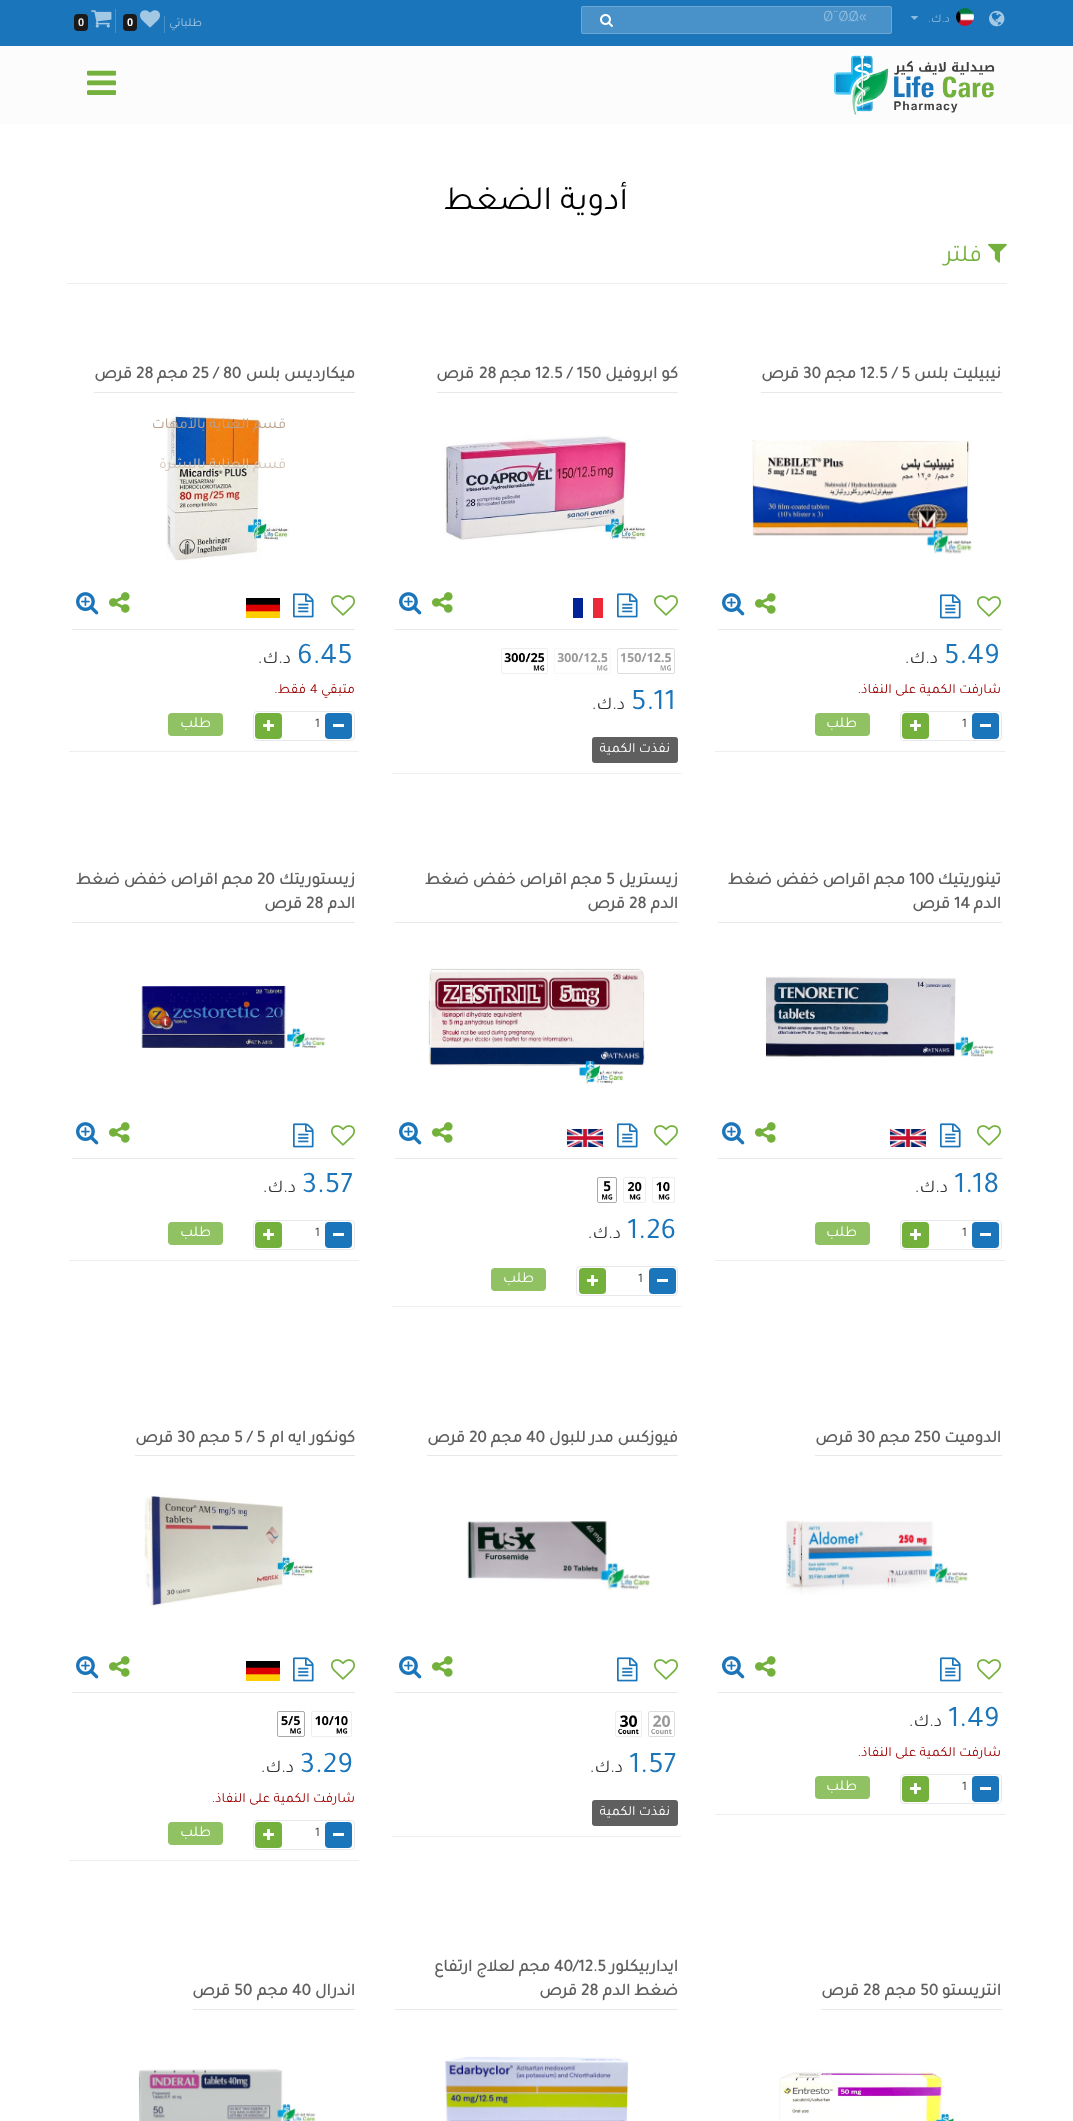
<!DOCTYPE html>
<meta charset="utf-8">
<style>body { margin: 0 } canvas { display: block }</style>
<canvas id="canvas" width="1073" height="2121"></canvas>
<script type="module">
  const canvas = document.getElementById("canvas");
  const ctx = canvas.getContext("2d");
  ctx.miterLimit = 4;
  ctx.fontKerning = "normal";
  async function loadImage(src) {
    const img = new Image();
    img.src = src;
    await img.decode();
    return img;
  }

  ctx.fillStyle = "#ffffff";
  ctx.fillRect(0, 0, 1073, 2121);
  ctx.fillStyle = "#fcfcfc";
  ctx.fillRect(0, 46, 1073, 78);
  ctx.fillStyle = "#1b75bb";
  ctx.fillRect(0, 0, 1073, 46);
  ctx.drawImage(await loadImage("img1.png"), 989, 10, 16, 17);
  ctx.drawImage(await loadImage("img2.png"), 956, 8, 18, 18);
  ctx.direction = "rtl";
  ctx.font = "12px Tajawal";
  ctx.fillStyle = "#8dbadd";
  ctx.fillText("د.ك.", 950, 22);
  ctx.drawImage(await loadImage("img3.png"), 911, 16, 7, 4);
  ctx.fillStyle = "#4991c9";
  ctx.beginPath();
  ctx.roundRect(581, 6, 311, 28, 2);
  ctx.fill();
  ctx.beginPath();
  ctx.roundRect(581.5, 6.5, 310, 27, 1.5);
  ctx.strokeStyle = "rgba(255, 255, 255, 0.2)";
  ctx.stroke();
  ctx.direction = "ltr";
  ctx.font = "16px Tajawal";
  ctx.fillStyle = "#8dbadd";
  ctx.fillText("Ø¨ØØ«", 823, 21);
  ctx.fillStyle = "#9cc3e2";
  ctx.fillText("...", 847, 21);
  ctx.drawImage(await loadImage("img4.png"), 600, 14, 13, 13);
  ctx.fillStyle = "#4991c9";
  ctx.fillRect(164, 16, 1, 17);
  ctx.direction = "rtl";
  ctx.font = "12px Tajawal";
  ctx.fillStyle = "#a4c8e4";
  ctx.fillText("طلباتي", 202, 26);
  ctx.fillStyle = "#4991c9";
  ctx.fillRect(115, 9, 1, 24);
  ctx.drawImage(await loadImage("img5.png"), 140, 10, 20, 18);
  ctx.fillStyle = "#1a1a1a";
  ctx.beginPath();
  ctx.roundRect(123, 14, 14, 17, 4);
  ctx.fill();
  ctx.direction = "ltr";
  ctx.font = "bold 11px Liberation Sans";
  ctx.fillStyle = "#ffffff";
  ctx.fillText("0", 127, 26);
  ctx.drawImage(await loadImage("img6.png"), 91, 10, 21, 18);
  ctx.fillStyle = "#1a1a1a";
  ctx.beginPath();
  ctx.roundRect(74, 14, 14, 17, 4);
  ctx.fill();
  ctx.fillStyle = "#e8e8e8";
  ctx.fillText("0", 78, 26);
  ctx.drawImage(await loadImage("img7.png"), 834, 55, 161, 60);
  ctx.drawImage(await loadImage("img8.png"), 87, 70, 29, 25);
  ctx.drawImage(await loadImage("img21.png"), 166, 411, 124, 150);
  ctx.direction = "rtl";
  ctx.font = "15px Tajawal";
  ctx.fillStyle = "#bca28e";
  ctx.fillText("قسم العناية بالأمهات", 286, 428);
  ctx.fillStyle = "#d3c4b6";
  ctx.fillText("قسم العناية بالبشرة", 286, 468);
  ctx.font = "34px Tajawal";
  ctx.fillStyle = "#000000";
  ctx.fillText("أدوية الضغط", 628, 209);
  ctx.fillStyle = "#eeeeee";
  ctx.fillRect(67, 283, 940, 1);
  ctx.drawImage(await loadImage("img9.png"), 988, 243, 19, 20);
  ctx.font = "24px Tajawal";
  ctx.fillStyle = "#74b13c";
  ctx.fillText("فلتر", 982, 261);
  ctx.fillStyle = "#eeeeee";
  ctx.beginPath();
  ctx.moveTo(1007, 752);
  ctx.lineTo(713, 752);
  ctx.lineTo(716, 751);
  ctx.lineTo(1004, 751);
  ctx.closePath();
  ctx.fill();
  ctx.fillStyle = "#ffffff";
  ctx.beginPath();
  ctx.moveTo(713, 752);
  ctx.lineTo(713, 284);
  ctx.lineTo(716, 287);
  ctx.lineTo(716, 751);
  ctx.closePath();
  ctx.fill();
  ctx.fillStyle = "#e6e8ec";
  ctx.fillRect(761, 392, 241, 1);
  ctx.font = "bold 17px Tajawal";
  ctx.fillStyle = "#5f5f5f";
  ctx.fillText("نيبيليت بلس", 1001, 378);
  ctx.direction = "ltr";
  ctx.fillText("12.5 / 5", 860, 378);
  ctx.direction = "rtl";
  ctx.fillText("مجم", 856, 378);
  ctx.direction = "ltr";
  ctx.fillText("30", 803, 378);
  ctx.direction = "rtl";
  ctx.fillText("قرص", 799, 378);
  ctx.drawImage(await loadImage("img10.png"), 752, 440, 220, 114);
  ctx.fillStyle = "#e6e8ec";
  ctx.fillRect(718, 629, 284, 1);
  ctx.drawImage(await loadImage("img11.png"), 977, 596, 24, 21);
  ctx.drawImage(await loadImage("img12.png"), 940, 594, 21, 25);
  ctx.drawImage(await loadImage("img13.png"), 755, 593, 21, 21);
  ctx.drawImage(await loadImage("img14.png"), 722, 593, 23, 23);
  ctx.direction = "ltr";
  ctx.font = "30px Tajawal";
  ctx.fillStyle = "#1b75bb";
  ctx.fillText("5.49", 944, 663);
  ctx.direction = "rtl";
  ctx.font = "18px Tajawal";
  ctx.fillStyle = "#333333";
  ctx.fillText("د.ك.", 938, 663);
  ctx.font = "14px Tajawal";
  ctx.fillStyle = "#990000";
  ctx.fillText("شارفت الكمية على النفاذ.", 1001, 693);
  ctx.beginPath();
  ctx.roundRect(900.5, 711.5, 101, 29, 3.5);
  ctx.strokeStyle = "#e6e8ec";
  ctx.stroke();
  ctx.fillStyle = "#1b75bb";
  ctx.beginPath();
  ctx.roundRect(972, 713, 27, 26, 4);
  ctx.fill();
  ctx.fillStyle = "#ffffff";
  ctx.fillRect(980, 724, 11, 3);
  ctx.direction = "ltr";
  ctx.font = "13px Tajawal";
  ctx.fillStyle = "#333333";
  ctx.fillText("1", 962, 727);
  ctx.fillStyle = "#74b13c";
  ctx.beginPath();
  ctx.roundRect(902, 713, 27, 26, 4);
  ctx.fill();
  ctx.drawImage(await loadImage("img15.png"), 910, 720, 11, 11);
  ctx.fillStyle = "#90c163";
  ctx.beginPath();
  ctx.roundRect(815, 713, 55, 23, 4);
  ctx.fill();
  ctx.direction = "rtl";
  ctx.font = "15px Tajawal";
  ctx.fillStyle = "#ffffff";
  ctx.fillText("طلب", 857, 727);
  ctx.fillStyle = "#eeeeee";
  ctx.beginPath();
  ctx.moveTo(683, 774);
  ctx.lineTo(390, 774);
  ctx.lineTo(393, 773);
  ctx.lineTo(680, 773);
  ctx.closePath();
  ctx.fill();
  ctx.fillStyle = "#ffffff";
  ctx.beginPath();
  ctx.moveTo(390, 774);
  ctx.lineTo(390, 284);
  ctx.lineTo(393, 287);
  ctx.lineTo(393, 773);
  ctx.closePath();
  ctx.fill();
  ctx.fillStyle = "#e6e8ec";
  ctx.fillRect(437, 392, 241, 1);
  ctx.font = "bold 17px Tajawal";
  ctx.fillStyle = "#5f5f5f";
  ctx.fillText("كو ابروفيل", 678, 378);
  ctx.direction = "ltr";
  ctx.fillText("12.5 / 150", 535, 378);
  ctx.direction = "rtl";
  ctx.fillText("مجم", 531, 378);
  ctx.direction = "ltr";
  ctx.fillText("28", 479, 378);
  ctx.direction = "rtl";
  ctx.fillText("قرص", 474, 378);
  ctx.drawImage(await loadImage("img16.png"), 443, 435, 203, 106);
  ctx.fillStyle = "#e6e8ec";
  ctx.fillRect(395, 629, 283, 1);
  ctx.drawImage(await loadImage("img11.png"), 654, 595, 24, 21);
  ctx.drawImage(await loadImage("img12.png"), 617, 593, 21, 25);
  ctx.drawImage(await loadImage("img17.png"), 573, 598, 30, 20);
  ctx.drawImage(await loadImage("img13.png"), 432, 592, 21, 21);
  ctx.drawImage(await loadImage("img14.png"), 399, 592, 23, 23);
  ctx.beginPath();
  ctx.roundRect(617.5, 648.5, 57, 25, 1.5);
  ctx.strokeStyle = "#dddddd";
  ctx.stroke();
  ctx.drawImage(await loadImage("img18.png"), 620, 653, 51, 18);
  ctx.beginPath();
  ctx.roundRect(554.5, 648.5, 56, 25, 1.5);
  ctx.strokeStyle = "#f8f8f8";
  ctx.stroke();
  ctx.drawImage(await loadImage("img19.png"), 557, 653, 51, 18);
  ctx.beginPath();
  ctx.roundRect(501.5, 648.5, 46, 25, 1.5);
  ctx.strokeStyle = "#eeeeee";
  ctx.stroke();
  ctx.drawImage(await loadImage("img20.png"), 504, 652, 41, 19);
  ctx.direction = "ltr";
  ctx.font = "30px Tajawal";
  ctx.fillStyle = "#1b75bb";
  ctx.fillText("5.11", 631, 709);
  ctx.direction = "rtl";
  ctx.font = "18px Tajawal";
  ctx.fillStyle = "#333333";
  ctx.fillText("د.ك.", 625, 709);
  ctx.fillStyle = "#5f5f5f";
  ctx.beginPath();
  ctx.roundRect(592, 737, 86, 26, 3);
  ctx.fill();
  ctx.font = "14px Tajawal";
  ctx.fillStyle = "#ffffff";
  ctx.fillText("نفذت الكمية", 670, 752);
  ctx.fillStyle = "#eeeeee";
  ctx.beginPath();
  ctx.moveTo(360, 752);
  ctx.lineTo(67, 752);
  ctx.lineTo(70, 751);
  ctx.lineTo(357, 751);
  ctx.closePath();
  ctx.fill();
  ctx.fillStyle = "#ffffff";
  ctx.beginPath();
  ctx.moveTo(67, 752);
  ctx.lineTo(67, 284);
  ctx.lineTo(70, 287);
  ctx.lineTo(70, 751);
  ctx.closePath();
  ctx.fill();
  ctx.fillStyle = "#e6e8ec";
  ctx.fillRect(94, 392, 261, 1);
  ctx.font = "bold 17px Tajawal";
  ctx.fillStyle = "#5f5f5f";
  ctx.fillText("ميكارديس بلس", 355, 378);
  ctx.direction = "ltr";
  ctx.fillText("25 / 80", 192, 378);
  ctx.direction = "rtl";
  ctx.fillText("مجم", 188, 378);
  ctx.direction = "ltr";
  ctx.fillText("28", 136, 378);
  ctx.direction = "rtl";
  ctx.fillText("قرص", 132, 378);
  ctx.fillStyle = "#e6e8ec";
  ctx.fillRect(72, 629, 283, 1);
  ctx.drawImage(await loadImage("img11.png"), 331, 595, 24, 21);
  ctx.drawImage(await loadImage("img12.png"), 293, 593, 21, 25);
  ctx.drawImage(await loadImage("img22.png"), 246, 598, 34, 20);
  ctx.drawImage(await loadImage("img13.png"), 109, 592, 21, 21);
  ctx.drawImage(await loadImage("img14.png"), 76, 592, 23, 23);
  ctx.direction = "ltr";
  ctx.font = "30px Tajawal";
  ctx.fillStyle = "#1b75bb";
  ctx.fillText("6.45", 297, 663);
  ctx.direction = "rtl";
  ctx.font = "18px Tajawal";
  ctx.fillStyle = "#333333";
  ctx.fillText("د.ك.", 291, 663);
  ctx.font = "14px Tajawal";
  ctx.fillStyle = "#990000";
  ctx.fillText("متبقي", 355, 693);
  ctx.direction = "ltr";
  ctx.fillText("4", 310, 693);
  ctx.direction = "rtl";
  ctx.fillText("فقط.", 306, 693);
  ctx.beginPath();
  ctx.roundRect(253.5, 711.5, 101, 29, 3.5);
  ctx.strokeStyle = "#e6e8ec";
  ctx.stroke();
  ctx.fillStyle = "#1b75bb";
  ctx.beginPath();
  ctx.roundRect(325, 713, 27, 26, 4);
  ctx.fill();
  ctx.fillStyle = "#ffffff";
  ctx.fillRect(333, 724, 11, 3);
  ctx.direction = "ltr";
  ctx.font = "13px Tajawal";
  ctx.fillStyle = "#333333";
  ctx.fillText("1", 315, 727);
  ctx.fillStyle = "#74b13c";
  ctx.beginPath();
  ctx.roundRect(255, 713, 27, 26, 4);
  ctx.fill();
  ctx.drawImage(await loadImage("img15.png"), 263, 720, 11, 11);
  ctx.fillStyle = "#90c163";
  ctx.beginPath();
  ctx.roundRect(168, 713, 55, 23, 4);
  ctx.fill();
  ctx.direction = "rtl";
  ctx.font = "15px Tajawal";
  ctx.fillStyle = "#ffffff";
  ctx.fillText("طلب", 211, 727);
  ctx.fillStyle = "#eeeeee";
  ctx.beginPath();
  ctx.moveTo(1007, 1261);
  ctx.lineTo(713, 1261);
  ctx.lineTo(716, 1260);
  ctx.lineTo(1004, 1260);
  ctx.closePath();
  ctx.fill();
  ctx.fillStyle = "#ffffff";
  ctx.beginPath();
  ctx.moveTo(713, 1261);
  ctx.lineTo(713, 814);
  ctx.lineTo(716, 817);
  ctx.lineTo(716, 1260);
  ctx.closePath();
  ctx.fill();
  ctx.fillStyle = "#e6e8ec";
  ctx.fillRect(718, 922, 284, 1);
  ctx.font = "bold 17px Tajawal";
  ctx.fillStyle = "#5f5f5f";
  ctx.fillText("تينوريتيك", 1001, 884);
  ctx.direction = "ltr";
  ctx.fillText("100", 909, 884);
  ctx.direction = "rtl";
  ctx.fillText("مجم اقراص خفض ضغط", 905, 884);
  ctx.fillText("الدم", 1001, 908);
  ctx.direction = "ltr";
  ctx.fillText("14", 954, 908);
  ctx.direction = "rtl";
  ctx.fillText("قرص", 950, 908);
  ctx.drawImage(await loadImage("img23.png"), 764, 976, 230, 81);
  ctx.fillStyle = "#e6e8ec";
  ctx.fillRect(718, 1158, 284, 1);
  ctx.drawImage(await loadImage("img11.png"), 977, 1125, 24, 21);
  ctx.drawImage(await loadImage("img12.png"), 940, 1123, 21, 25);
  ctx.drawImage(await loadImage("img24.png"), 890, 1129, 36, 18);
  ctx.drawImage(await loadImage("img13.png"), 755, 1122, 21, 21);
  ctx.drawImage(await loadImage("img14.png"), 722, 1122, 23, 23);
  ctx.direction = "ltr";
  ctx.font = "30px Tajawal";
  ctx.fillStyle = "#1b75bb";
  ctx.fillText("1.18", 954, 1192);
  ctx.direction = "rtl";
  ctx.font = "18px Tajawal";
  ctx.fillStyle = "#333333";
  ctx.fillText("د.ك.", 948, 1192);
  ctx.beginPath();
  ctx.roundRect(900.5, 1220.5, 101, 29, 3.5);
  ctx.stroke();
  ctx.fillStyle = "#1b75bb";
  ctx.beginPath();
  ctx.roundRect(972, 1222, 27, 26, 4);
  ctx.fill();
  ctx.fillStyle = "#ffffff";
  ctx.fillRect(980, 1233, 11, 3);
  ctx.direction = "ltr";
  ctx.font = "13px Tajawal";
  ctx.fillStyle = "#333333";
  ctx.fillText("1", 962, 1236);
  ctx.fillStyle = "#74b13c";
  ctx.beginPath();
  ctx.roundRect(902, 1222, 27, 26, 4);
  ctx.fill();
  ctx.drawImage(await loadImage("img15.png"), 910, 1229, 11, 11);
  ctx.fillStyle = "#90c163";
  ctx.beginPath();
  ctx.roundRect(815, 1222, 55, 23, 4);
  ctx.fill();
  ctx.direction = "rtl";
  ctx.font = "15px Tajawal";
  ctx.fillStyle = "#ffffff";
  ctx.fillText("طلب", 857, 1236);
  ctx.fillStyle = "#eeeeee";
  ctx.beginPath();
  ctx.moveTo(683, 1307);
  ctx.lineTo(390, 1307);
  ctx.lineTo(393, 1306);
  ctx.lineTo(680, 1306);
  ctx.closePath();
  ctx.fill();
  ctx.fillStyle = "#ffffff";
  ctx.beginPath();
  ctx.moveTo(390, 1307);
  ctx.lineTo(390, 814);
  ctx.lineTo(393, 817);
  ctx.lineTo(393, 1306);
  ctx.closePath();
  ctx.fill();
  ctx.fillStyle = "#e6e8ec";
  ctx.fillRect(395, 922, 283, 1);
  ctx.font = "bold 17px Tajawal";
  ctx.fillStyle = "#5f5f5f";
  ctx.fillText("زيستريل", 678, 884);
  ctx.direction = "ltr";
  ctx.fillText("5", 606, 884);
  ctx.direction = "rtl";
  ctx.fillText("مجم اقراص خفض ضغط", 602, 884);
  ctx.fillText("الدم", 678, 908);
  ctx.direction = "ltr";
  ctx.fillText("28", 629, 908);
  ctx.direction = "rtl";
  ctx.fillText("قرص", 625, 908);
  ctx.drawImage(await loadImage("img25.png"), 428, 968, 217, 116);
  ctx.fillStyle = "#e6e8ec";
  ctx.fillRect(395, 1158, 283, 1);
  ctx.drawImage(await loadImage("img11.png"), 654, 1125, 24, 21);
  ctx.drawImage(await loadImage("img12.png"), 617, 1123, 21, 25);
  ctx.drawImage(await loadImage("img24.png"), 567, 1129, 36, 18);
  ctx.drawImage(await loadImage("img13.png"), 432, 1122, 21, 21);
  ctx.drawImage(await loadImage("img14.png"), 399, 1122, 23, 23);
  ctx.beginPath();
  ctx.roundRect(652.5, 1177.5, 22, 25, 1.5);
  ctx.strokeStyle = "#eeeeee";
  ctx.stroke();
  ctx.drawImage(await loadImage("img26.png"), 656, 1181, 14, 19);
  ctx.beginPath();
  ctx.roundRect(623.5, 1177.5, 22, 25, 1.5);
  ctx.stroke();
  ctx.drawImage(await loadImage("img27.png"), 627, 1181, 15, 19);
  ctx.beginPath();
  ctx.roundRect(597.5, 1177.5, 19, 25, 1.5);
  ctx.strokeStyle = "#aaaaaa";
  ctx.stroke();
  ctx.drawImage(await loadImage("img28.png"), 602, 1181, 11, 19);
  ctx.direction = "ltr";
  ctx.font = "30px Tajawal";
  ctx.fillStyle = "#1b75bb";
  ctx.fillText("1.26", 627, 1238);
  ctx.direction = "rtl";
  ctx.font = "18px Tajawal";
  ctx.fillStyle = "#333333";
  ctx.fillText("د.ك.", 621, 1238);
  ctx.beginPath();
  ctx.roundRect(576.5, 1266.5, 101, 29, 3.5);
  ctx.strokeStyle = "#e6e8ec";
  ctx.stroke();
  ctx.fillStyle = "#1b75bb";
  ctx.beginPath();
  ctx.roundRect(649, 1268, 27, 26, 4);
  ctx.fill();
  ctx.fillStyle = "#ffffff";
  ctx.fillRect(657, 1279, 11, 3);
  ctx.direction = "ltr";
  ctx.font = "13px Tajawal";
  ctx.fillStyle = "#333333";
  ctx.fillText("1", 638, 1282);
  ctx.fillStyle = "#74b13c";
  ctx.beginPath();
  ctx.roundRect(579, 1268, 27, 26, 4);
  ctx.fill();
  ctx.drawImage(await loadImage("img15.png"), 587, 1275, 11, 11);
  ctx.fillStyle = "#90c163";
  ctx.beginPath();
  ctx.roundRect(491, 1268, 55, 23, 4);
  ctx.fill();
  ctx.direction = "rtl";
  ctx.font = "15px Tajawal";
  ctx.fillStyle = "#ffffff";
  ctx.fillText("طلب", 534, 1282);
  ctx.fillStyle = "#eeeeee";
  ctx.beginPath();
  ctx.moveTo(360, 1261);
  ctx.lineTo(67, 1261);
  ctx.lineTo(70, 1260);
  ctx.lineTo(357, 1260);
  ctx.closePath();
  ctx.fill();
  ctx.fillStyle = "#ffffff";
  ctx.beginPath();
  ctx.moveTo(67, 1261);
  ctx.lineTo(67, 814);
  ctx.lineTo(70, 817);
  ctx.lineTo(70, 1260);
  ctx.closePath();
  ctx.fill();
  ctx.fillStyle = "#e6e8ec";
  ctx.fillRect(72, 922, 283, 1);
  ctx.font = "bold 17px Tajawal";
  ctx.fillStyle = "#5f5f5f";
  ctx.fillText("زيستوريتك", 355, 884);
  ctx.direction = "ltr";
  ctx.fillText("20", 257, 884);
  ctx.direction = "rtl";
  ctx.fillText("مجم اقراص خفض ضغط", 253, 884);
  ctx.fillText("الدم", 355, 908);
  ctx.direction = "ltr";
  ctx.fillText("28", 306, 908);
  ctx.direction = "rtl";
  ctx.fillText("قرص", 302, 908);
  ctx.drawImage(await loadImage("img29.png"), 141, 985, 184, 63);
  ctx.fillStyle = "#e6e8ec";
  ctx.fillRect(72, 1158, 283, 1);
  ctx.drawImage(await loadImage("img11.png"), 331, 1125, 24, 21);
  ctx.drawImage(await loadImage("img12.png"), 293, 1123, 21, 25);
  ctx.drawImage(await loadImage("img13.png"), 109, 1122, 21, 21);
  ctx.drawImage(await loadImage("img14.png"), 76, 1122, 23, 23);
  ctx.direction = "ltr";
  ctx.font = "30px Tajawal";
  ctx.fillStyle = "#1b75bb";
  ctx.fillText("3.57", 302, 1192);
  ctx.direction = "rtl";
  ctx.font = "18px Tajawal";
  ctx.fillStyle = "#333333";
  ctx.fillText("د.ك.", 296, 1192);
  ctx.beginPath();
  ctx.roundRect(253.5, 1220.5, 101, 29, 3.5);
  ctx.stroke();
  ctx.fillStyle = "#1b75bb";
  ctx.beginPath();
  ctx.roundRect(325, 1222, 27, 26, 4);
  ctx.fill();
  ctx.fillStyle = "#ffffff";
  ctx.fillRect(333, 1233, 11, 3);
  ctx.direction = "ltr";
  ctx.font = "13px Tajawal";
  ctx.fillStyle = "#333333";
  ctx.fillText("1", 315, 1236);
  ctx.fillStyle = "#74b13c";
  ctx.beginPath();
  ctx.roundRect(255, 1222, 27, 26, 4);
  ctx.fill();
  ctx.drawImage(await loadImage("img15.png"), 263, 1229, 11, 11);
  ctx.fillStyle = "#90c163";
  ctx.beginPath();
  ctx.roundRect(168, 1222, 55, 23, 4);
  ctx.fill();
  ctx.direction = "rtl";
  ctx.font = "15px Tajawal";
  ctx.fillStyle = "#ffffff";
  ctx.fillText("طلب", 211, 1236);
  ctx.fillStyle = "#eeeeee";
  ctx.beginPath();
  ctx.moveTo(1007, 1815);
  ctx.lineTo(713, 1815);
  ctx.lineTo(716, 1814);
  ctx.lineTo(1004, 1814);
  ctx.closePath();
  ctx.fill();
  ctx.fillStyle = "#ffffff";
  ctx.beginPath();
  ctx.moveTo(713, 1815);
  ctx.lineTo(713, 1347);
  ctx.lineTo(716, 1350);
  ctx.lineTo(716, 1814);
  ctx.closePath();
  ctx.fill();
  ctx.fillStyle = "#e6e8ec";
  ctx.fillRect(815, 1455, 187, 1);
  ctx.font = "bold 17px Tajawal";
  ctx.fillStyle = "#5f5f5f";
  ctx.fillText("الدوميت", 1001, 1442);
  ctx.direction = "ltr";
  ctx.fillText("250", 914, 1442);
  ctx.direction = "rtl";
  ctx.fillText("مجم", 910, 1442);
  ctx.direction = "ltr";
  ctx.fillText("30", 857, 1442);
  ctx.direction = "rtl";
  ctx.fillText("قرص", 853, 1442);
  ctx.drawImage(await loadImage("img30.png"), 783, 1520, 185, 75);
  ctx.fillStyle = "#e6e8ec";
  ctx.fillRect(718, 1692, 284, 1);
  ctx.drawImage(await loadImage("img11.png"), 977, 1659, 24, 21);
  ctx.drawImage(await loadImage("img12.png"), 940, 1657, 21, 25);
  ctx.drawImage(await loadImage("img13.png"), 755, 1656, 21, 21);
  ctx.drawImage(await loadImage("img14.png"), 722, 1656, 23, 23);
  ctx.direction = "ltr";
  ctx.font = "30px Tajawal";
  ctx.fillStyle = "#1b75bb";
  ctx.fillText("1.49", 948, 1726);
  ctx.direction = "rtl";
  ctx.font = "18px Tajawal";
  ctx.fillStyle = "#333333";
  ctx.fillText("د.ك.", 942, 1726);
  ctx.font = "14px Tajawal";
  ctx.fillStyle = "#990000";
  ctx.fillText("شارفت الكمية على النفاذ.", 1001, 1756);
  ctx.beginPath();
  ctx.roundRect(900.5, 1774.5, 101, 29, 3.5);
  ctx.stroke();
  ctx.fillStyle = "#1b75bb";
  ctx.beginPath();
  ctx.roundRect(972, 1776, 27, 26, 4);
  ctx.fill();
  ctx.fillStyle = "#ffffff";
  ctx.fillRect(980, 1787, 11, 3);
  ctx.direction = "ltr";
  ctx.font = "13px Tajawal";
  ctx.fillStyle = "#333333";
  ctx.fillText("1", 962, 1790);
  ctx.fillStyle = "#74b13c";
  ctx.beginPath();
  ctx.roundRect(902, 1776, 27, 26, 4);
  ctx.fill();
  ctx.drawImage(await loadImage("img15.png"), 910, 1783, 11, 11);
  ctx.fillStyle = "#90c163";
  ctx.beginPath();
  ctx.roundRect(815, 1776, 55, 23, 4);
  ctx.fill();
  ctx.direction = "rtl";
  ctx.font = "15px Tajawal";
  ctx.fillStyle = "#ffffff";
  ctx.fillText("طلب", 857, 1790);
  ctx.fillStyle = "#eeeeee";
  ctx.beginPath();
  ctx.moveTo(683, 1837);
  ctx.lineTo(390, 1837);
  ctx.lineTo(393, 1836);
  ctx.lineTo(680, 1836);
  ctx.closePath();
  ctx.fill();
  ctx.fillStyle = "#ffffff";
  ctx.beginPath();
  ctx.moveTo(390, 1837);
  ctx.lineTo(390, 1347);
  ctx.lineTo(393, 1350);
  ctx.lineTo(393, 1836);
  ctx.closePath();
  ctx.fill();
  ctx.fillStyle = "#e6e8ec";
  ctx.fillRect(427, 1455, 251, 1);
  ctx.font = "bold 17px Tajawal";
  ctx.fillStyle = "#5f5f5f";
  ctx.fillText("فيوزكس مدر للبول", 678, 1442);
  ctx.direction = "ltr";
  ctx.fillText("40", 526, 1442);
  ctx.direction = "rtl";
  ctx.fillText("مجم", 522, 1442);
  ctx.direction = "ltr";
  ctx.fillText("20", 469, 1442);
  ctx.direction = "rtl";
  ctx.fillText("قرص", 465, 1442);
  ctx.drawImage(await loadImage("img31.png"), 467, 1521, 183, 69);
  ctx.fillStyle = "#e6e8ec";
  ctx.fillRect(395, 1692, 283, 1);
  ctx.drawImage(await loadImage("img11.png"), 654, 1659, 24, 21);
  ctx.drawImage(await loadImage("img12.png"), 617, 1657, 21, 25);
  ctx.drawImage(await loadImage("img13.png"), 432, 1656, 21, 21);
  ctx.drawImage(await loadImage("img14.png"), 399, 1656, 23, 23);
  ctx.beginPath();
  ctx.roundRect(648.5, 1711.5, 26, 25, 1.5);
  ctx.strokeStyle = "#dddddd";
  ctx.stroke();
  ctx.drawImage(await loadImage("img32.png"), 651, 1715, 21, 20);
  ctx.beginPath();
  ctx.roundRect(615.5, 1711.5, 26, 25, 1.5);
  ctx.strokeStyle = "#eeeeee";
  ctx.stroke();
  ctx.drawImage(await loadImage("img33.png"), 618, 1715, 21, 20);
  ctx.direction = "ltr";
  ctx.font = "30px Tajawal";
  ctx.fillStyle = "#1b75bb";
  ctx.fillText("1.57", 629, 1772);
  ctx.direction = "rtl";
  ctx.font = "18px Tajawal";
  ctx.fillStyle = "#333333";
  ctx.fillText("د.ك.", 623, 1772);
  ctx.fillStyle = "#5f5f5f";
  ctx.beginPath();
  ctx.roundRect(592, 1800, 86, 26, 3);
  ctx.fill();
  ctx.font = "14px Tajawal";
  ctx.fillStyle = "#ffffff";
  ctx.fillText("نفذت الكمية", 670, 1815);
  ctx.fillStyle = "#eeeeee";
  ctx.beginPath();
  ctx.moveTo(360, 1861);
  ctx.lineTo(67, 1861);
  ctx.lineTo(70, 1860);
  ctx.lineTo(357, 1860);
  ctx.closePath();
  ctx.fill();
  ctx.fillStyle = "#ffffff";
  ctx.beginPath();
  ctx.moveTo(67, 1861);
  ctx.lineTo(67, 1347);
  ctx.lineTo(70, 1350);
  ctx.lineTo(70, 1860);
  ctx.closePath();
  ctx.fill();
  ctx.fillStyle = "#e6e8ec";
  ctx.fillRect(135, 1455, 220, 1);
  ctx.font = "bold 17px Tajawal";
  ctx.fillStyle = "#5f5f5f";
  ctx.fillText("كونكور ايه ام", 355, 1442);
  ctx.direction = "ltr";
  ctx.fillText("5 / 5", 234, 1442);
  ctx.direction = "rtl";
  ctx.fillText("مجم", 230, 1442);
  ctx.direction = "ltr";
  ctx.fillText("30", 177, 1442);
  ctx.direction = "rtl";
  ctx.fillText("قرص", 173, 1442);
  ctx.drawImage(await loadImage("img34.png"), 144, 1494, 170, 113);
  ctx.fillStyle = "#e6e8ec";
  ctx.fillRect(72, 1692, 283, 1);
  ctx.drawImage(await loadImage("img11.png"), 331, 1659, 24, 21);
  ctx.drawImage(await loadImage("img12.png"), 293, 1657, 21, 25);
  ctx.drawImage(await loadImage("img22.png"), 246, 1661, 34, 20);
  ctx.drawImage(await loadImage("img13.png"), 109, 1656, 21, 21);
  ctx.drawImage(await loadImage("img14.png"), 76, 1656, 23, 23);
  ctx.beginPath();
  ctx.roundRect(311.5, 1711.5, 40, 25, 1.5);
  ctx.stroke();
  ctx.drawImage(await loadImage("img35.png"), 315, 1715, 33, 19);
  ctx.beginPath();
  ctx.roundRect(277.5, 1711.5, 27, 25, 1.5);
  ctx.strokeStyle = "#aaaaaa";
  ctx.stroke();
  ctx.drawImage(await loadImage("img36.png"), 281, 1716, 20, 18);
  ctx.direction = "ltr";
  ctx.font = "30px Tajawal";
  ctx.fillStyle = "#1b75bb";
  ctx.fillText("3.29", 300, 1772);
  ctx.direction = "rtl";
  ctx.font = "18px Tajawal";
  ctx.fillStyle = "#333333";
  ctx.fillText("د.ك.", 294, 1772);
  ctx.font = "14px Tajawal";
  ctx.fillStyle = "#990000";
  ctx.fillText("شارفت الكمية على النفاذ.", 355, 1802);
  ctx.beginPath();
  ctx.roundRect(253.5, 1820.5, 101, 29, 3.5);
  ctx.strokeStyle = "#e6e8ec";
  ctx.stroke();
  ctx.fillStyle = "#1b75bb";
  ctx.beginPath();
  ctx.roundRect(325, 1822, 27, 26, 4);
  ctx.fill();
  ctx.fillStyle = "#ffffff";
  ctx.fillRect(333, 1833, 11, 3);
  ctx.direction = "ltr";
  ctx.font = "13px Tajawal";
  ctx.fillStyle = "#333333";
  ctx.fillText("1", 315, 1836);
  ctx.fillStyle = "#74b13c";
  ctx.beginPath();
  ctx.roundRect(255, 1822, 27, 26, 4);
  ctx.fill();
  ctx.drawImage(await loadImage("img15.png"), 263, 1829, 11, 11);
  ctx.fillStyle = "#90c163";
  ctx.beginPath();
  ctx.roundRect(168, 1822, 55, 23, 4);
  ctx.fill();
  ctx.direction = "rtl";
  ctx.font = "15px Tajawal";
  ctx.fillStyle = "#ffffff";
  ctx.fillText("طلب", 211, 1836);
  ctx.fillStyle = "#e6e8ec";
  ctx.fillRect(821, 2009, 181, 1);
  ctx.font = "bold 17px Tajawal";
  ctx.fillStyle = "#5f5f5f";
  ctx.fillText("انتريستو", 1001, 1995);
  ctx.direction = "ltr";
  ctx.fillText("50", 920, 1995);
  ctx.direction = "rtl";
  ctx.fillText("مجم", 916, 1995);
  ctx.direction = "ltr";
  ctx.fillText("28", 863, 1995);
  ctx.direction = "rtl";
  ctx.fillText("قرص", 859, 1995);
  ctx.drawImage(await loadImage("img37.png"), 779, 2070, 176, 51);
  ctx.fillStyle = "#e6e8ec";
  ctx.fillRect(395, 2009, 283, 1);
  ctx.fillStyle = "#5f5f5f";
  ctx.fillText("ايداربيكلور", 678, 1971);
  ctx.direction = "ltr";
  ctx.fillText("40/12.5", 554, 1971);
  ctx.direction = "rtl";
  ctx.fillText("مجم لعلاج ارتفاع", 550, 1971);
  ctx.fillText("ضغط الدم", 678, 1995);
  ctx.direction = "ltr";
  ctx.fillText("28", 581, 1995);
  ctx.direction = "rtl";
  ctx.fillText("قرص", 577, 1995);
  ctx.drawImage(await loadImage("img38.png"), 444, 2056, 185, 65);
  ctx.fillStyle = "#e6e8ec";
  ctx.fillRect(193, 2009, 162, 1);
  ctx.fillStyle = "#5f5f5f";
  ctx.fillText("اندرال", 355, 1995);
  ctx.direction = "ltr";
  ctx.fillText("40", 292, 1995);
  ctx.direction = "rtl";
  ctx.fillText("مجم", 288, 1995);
  ctx.direction = "ltr";
  ctx.fillText("50", 234, 1995);
  ctx.direction = "rtl";
  ctx.fillText("قرص", 230, 1995);
  ctx.drawImage(await loadImage("img39.png"), 138, 2069, 178, 52);
</script>
